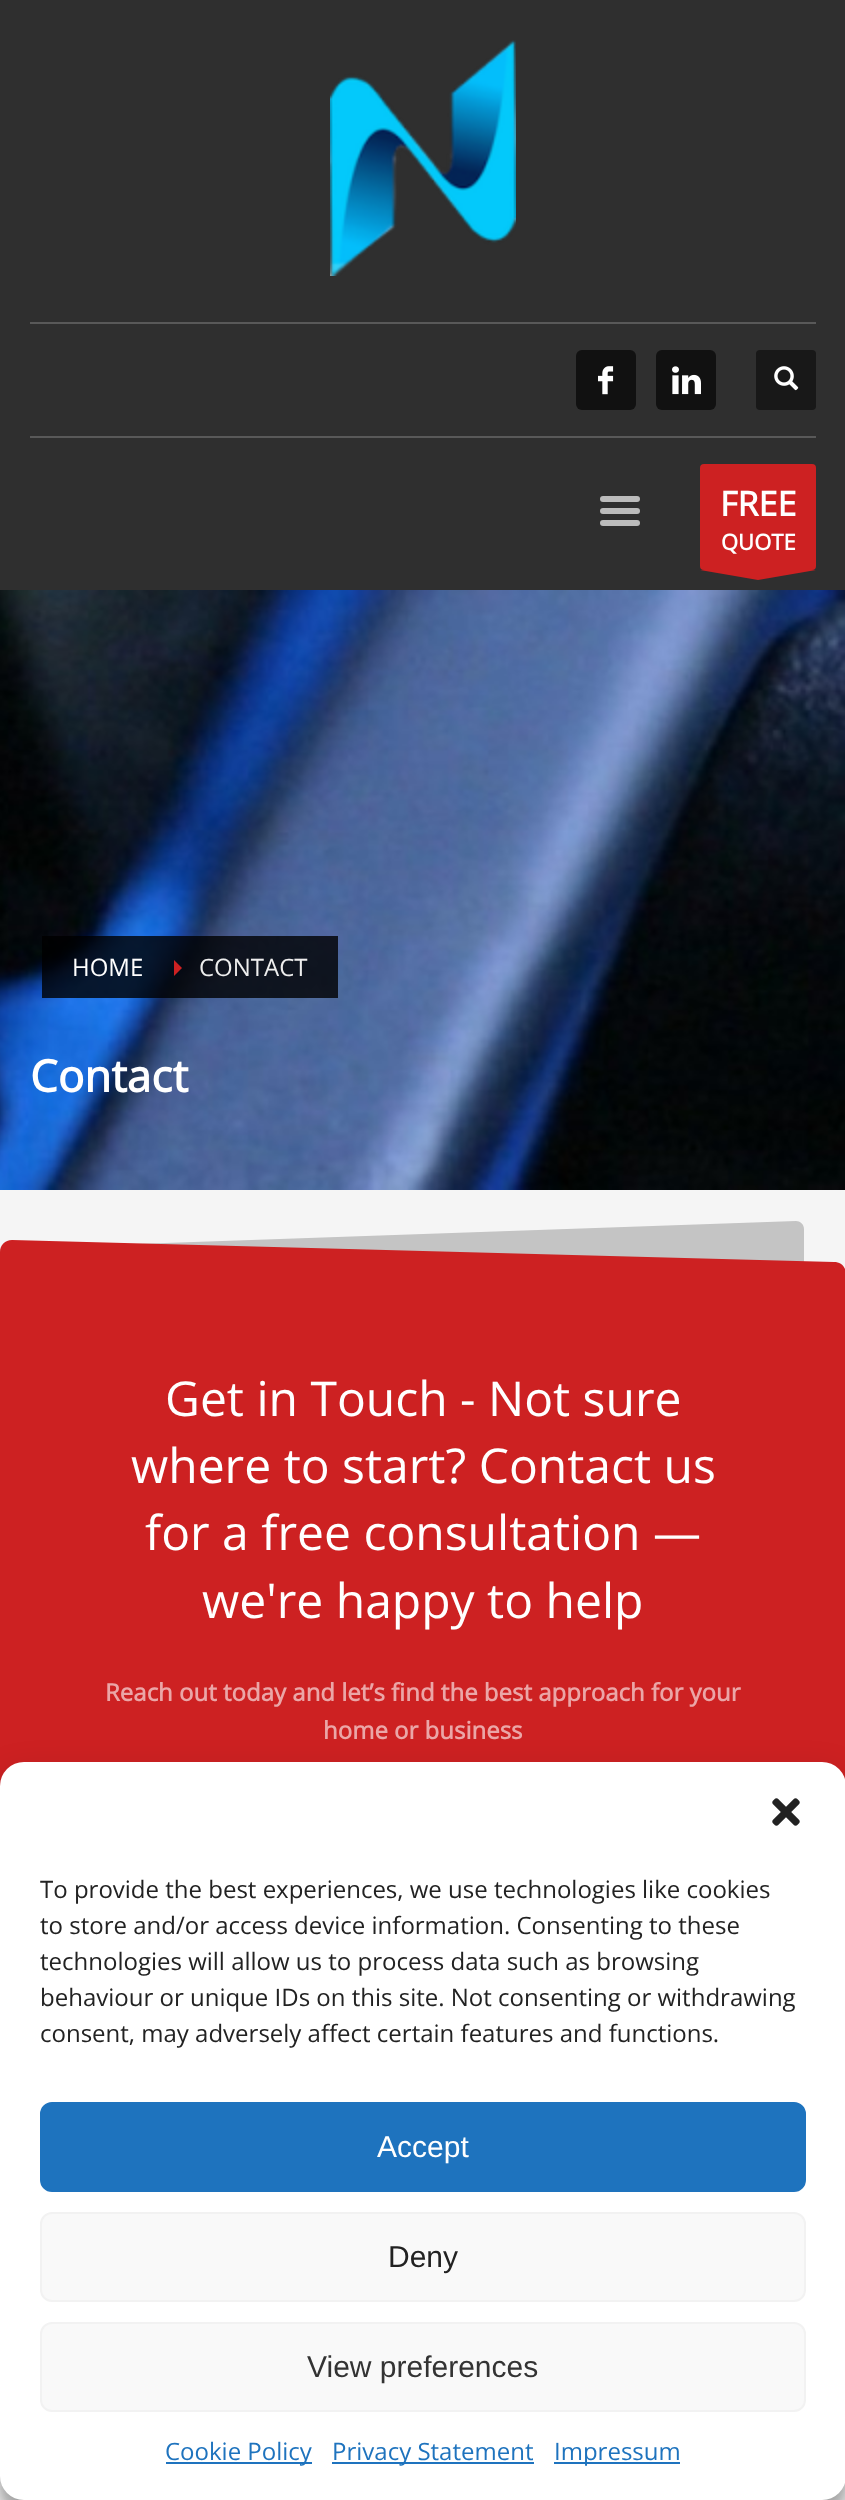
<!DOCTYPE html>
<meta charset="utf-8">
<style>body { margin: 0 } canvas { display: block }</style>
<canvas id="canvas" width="845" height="2500"></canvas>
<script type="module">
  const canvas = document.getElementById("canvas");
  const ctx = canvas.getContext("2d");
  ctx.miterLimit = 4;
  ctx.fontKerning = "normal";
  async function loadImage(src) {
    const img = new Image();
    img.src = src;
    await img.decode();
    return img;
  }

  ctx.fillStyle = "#f5f5f5";
  ctx.fillRect(0, 0, 845, 2500);
  ctx.fillStyle = "#2f2f2f";
  ctx.fillRect(0, 0, 845, 590);
  ctx.drawImage(await loadImage("img1.png"), 330, 40, 186, 236);
  ctx.fillStyle = "#595959";
  ctx.fillRect(30, 322, 786, 2);
  ctx.fillStyle = "#111111";
  ctx.beginPath();
  ctx.roundRect(576, 350, 60, 60, 6);
  ctx.fill();
  ctx.drawImage(await loadImage("img2.png"), 598, 366, 16, 29);
  ctx.beginPath();
  ctx.roundRect(656, 350, 60, 60, 6);
  ctx.fill();
  ctx.drawImage(await loadImage("img3.png"), 672, 366, 29, 29);
  ctx.fillStyle = "#181818";
  ctx.beginPath();
  ctx.roundRect(756, 350, 60, 60, 4);
  ctx.fill();
  ctx.drawImage(await loadImage("img4.png"), 774, 366, 25, 25);
  ctx.fillStyle = "#595959";
  ctx.fillRect(30, 436, 786, 2);
  ctx.fillStyle = "#bcbcbc";
  ctx.beginPath();
  ctx.roundRect(600, 496, 40, 6, 3);
  ctx.fill();
  ctx.beginPath();
  ctx.roundRect(600, 508, 40, 6, 3);
  ctx.fill();
  ctx.beginPath();
  ctx.roundRect(600, 520, 40, 6, 3);
  ctx.fill();
  ctx.fillStyle = "#cd2122";
  ctx.beginPath();
  ctx.roundRect(700, 464, 116, 106, 4);
  ctx.fill();
  ctx.font = "bold 34px Open Sans";
  ctx.fillStyle = "#ffffff";
  ctx.fillText("FREE", 720, 516);
  ctx.font = "bold 22px Open Sans";
  ctx.fillText("QUOTE", 721, 550);
  ctx.fillStyle = "#cd2122";
  ctx.beginPath();
  ctx.moveTo(816, 570);
  ctx.lineTo(758, 580);
  ctx.lineTo(700, 570);
  ctx.closePath();
  ctx.fill("evenodd");
  ctx.drawImage(await loadImage("img5.png"), 0, 590, 845, 600);
  ctx.fillStyle = "rgba(0, 0, 0, 0.8)";
  ctx.fillRect(42, 936, 112, 62);
  ctx.font = "24px Open Sans";
  ctx.fillStyle = "#ffffff";
  ctx.fillText("HOME", 72, 976);
  ctx.fillStyle = "rgba(0, 0, 0, 0.8)";
  ctx.fillRect(154, 936, 184, 62);
  ctx.fillStyle = "#cd2122";
  ctx.beginPath();
  ctx.moveTo(174, 976);
  ctx.lineTo(174, 960);
  ctx.lineTo(182, 968);
  ctx.closePath();
  ctx.fill();
  ctx.fillStyle = "#eeeeee";
  ctx.fillText("CONTACT", 199, 976);
  ctx.font = "bold 44px Open Sans";
  ctx.fillStyle = "#ffffff";
  ctx.fillText("Contact", 30, 1092);
  ctx.fillStyle = "rgba(0, 0, 0, 0.2)";
  ctx.beginPath();
  ctx.moveTo(50, 1247);
  ctx.lineTo(796, 1221);
  ctx.bezierCurveTo(800, 1221, 804, 1224, 804, 1229);
  ctx.lineTo(804, 1391);
  ctx.bezierCurveTo(804, 1396, 800, 1399, 796, 1400);
  ctx.lineTo(50, 1426);
  ctx.bezierCurveTo(46, 1426, 42, 1422, 42, 1418);
  ctx.lineTo(42, 1255);
  ctx.bezierCurveTo(42, 1251, 46, 1247, 50, 1247);
  ctx.closePath();
  ctx.fill();
  ctx.fillStyle = "#cd2122";
  ctx.beginPath();
  ctx.moveTo(12, 1240);
  ctx.lineTo(834, 1262);
  ctx.bezierCurveTo(841, 1262, 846, 1267, 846, 1274);
  ctx.lineTo(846, 1846);
  ctx.bezierCurveTo(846, 1852, 841, 1857, 834, 1857);
  ctx.lineTo(12, 1836);
  ctx.bezierCurveTo(5, 1835, 0, 1830, 0, 1823);
  ctx.lineTo(0, 1252);
  ctx.bezierCurveTo(0, 1245, 5, 1240, 12, 1240);
  ctx.closePath();
  ctx.fill();
  ctx.font = "48px Open Sans";
  ctx.fillStyle = "#ffffff";
  ctx.fillText("Get in Touch - Not sure", 165, 1416);
  ctx.fillText("where to start? Contact us", 131, 1483);
  ctx.fillText("for a free consultation —", 145, 1550);
  ctx.fillText("we're happy to help", 202, 1618);
  ctx.font = "bold 24px Open Sans";
  ctx.fillStyle = "#eba6a7";
  ctx.fillText("Reach out today and let’s find the best approach for your", 105, 1701);
  ctx.fillText("home or business", 323, 1739);
  ctx.fillStyle = "rgba(0, 0, 0, 0.23)";
  ctx.filter = "blur(6px)";
  ctx.beginPath();
  ctx.roundRect(0, 1774, 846, 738, 24);
  ctx.fill();
  ctx.filter = "none";
  ctx.fillStyle = "rgba(0, 0, 0, 0.19)";
  ctx.filter = "blur(20px)";
  ctx.beginPath();
  ctx.roundRect(0, 1782, 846, 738, 24);
  ctx.fill();
  ctx.filter = "none";
  ctx.fillStyle = "#ffffff";
  ctx.beginPath();
  ctx.roundRect(0, 1762, 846, 738, 24);
  ctx.fill();
  ctx.drawImage(await loadImage("img6.png"), 772, 1798, 28, 28);
  ctx.font = "24px Open Sans";
  ctx.fillStyle = "#222222";
  ctx.fillText("To provide the best experiences, we use technologies like cookies", 40, 1898);
  ctx.fillText("to store and/or access device information. Consenting to these", 40, 1934);
  ctx.fillText("technologies will allow us to process data such as browsing", 40, 1970);
  ctx.fillText("behaviour or unique IDs on this site. Not consenting or withdrawing", 40, 2006);
  ctx.fillText("consent, may adversely affect certain features and functions.", 40, 2042);
  ctx.fillStyle = "#1e73be";
  ctx.beginPath();
  ctx.roundRect(41, 2103, 764, 88, 11);
  ctx.fill();
  ctx.strokeStyle = "#1e73be";
  ctx.lineWidth = 2;
  ctx.stroke();
  ctx.font = "30px Liberation Sans";
  ctx.fillStyle = "#ffffff";
  ctx.fillText("Accept", 377, 2157);
  ctx.fillStyle = "#f9f9f9";
  ctx.beginPath();
  ctx.roundRect(41, 2213, 764, 88, 11);
  ctx.fill();
  ctx.strokeStyle = "#f2f2f2";
  ctx.stroke();
  ctx.fillStyle = "#222222";
  ctx.fillText("Deny", 388, 2267);
  ctx.fillStyle = "#f9f9f9";
  ctx.beginPath();
  ctx.roundRect(41, 2323, 764, 88, 11);
  ctx.fill();
  ctx.stroke();
  ctx.fillStyle = "#333333";
  ctx.fillText("View preferences", 307, 2377);
  ctx.fillStyle = "#1e73be";
  ctx.fillRect(166, 2462, 146, 2);
  ctx.font = "24px Open Sans";
  ctx.fillText("Cookie Policy", 165, 2460);
  ctx.fillRect(332, 2462, 202, 2);
  ctx.fillText("Privacy Statement", 332, 2460);
  ctx.fillRect(554, 2462, 126, 2);
  ctx.fillText("Impressum", 554, 2460);
</script>
